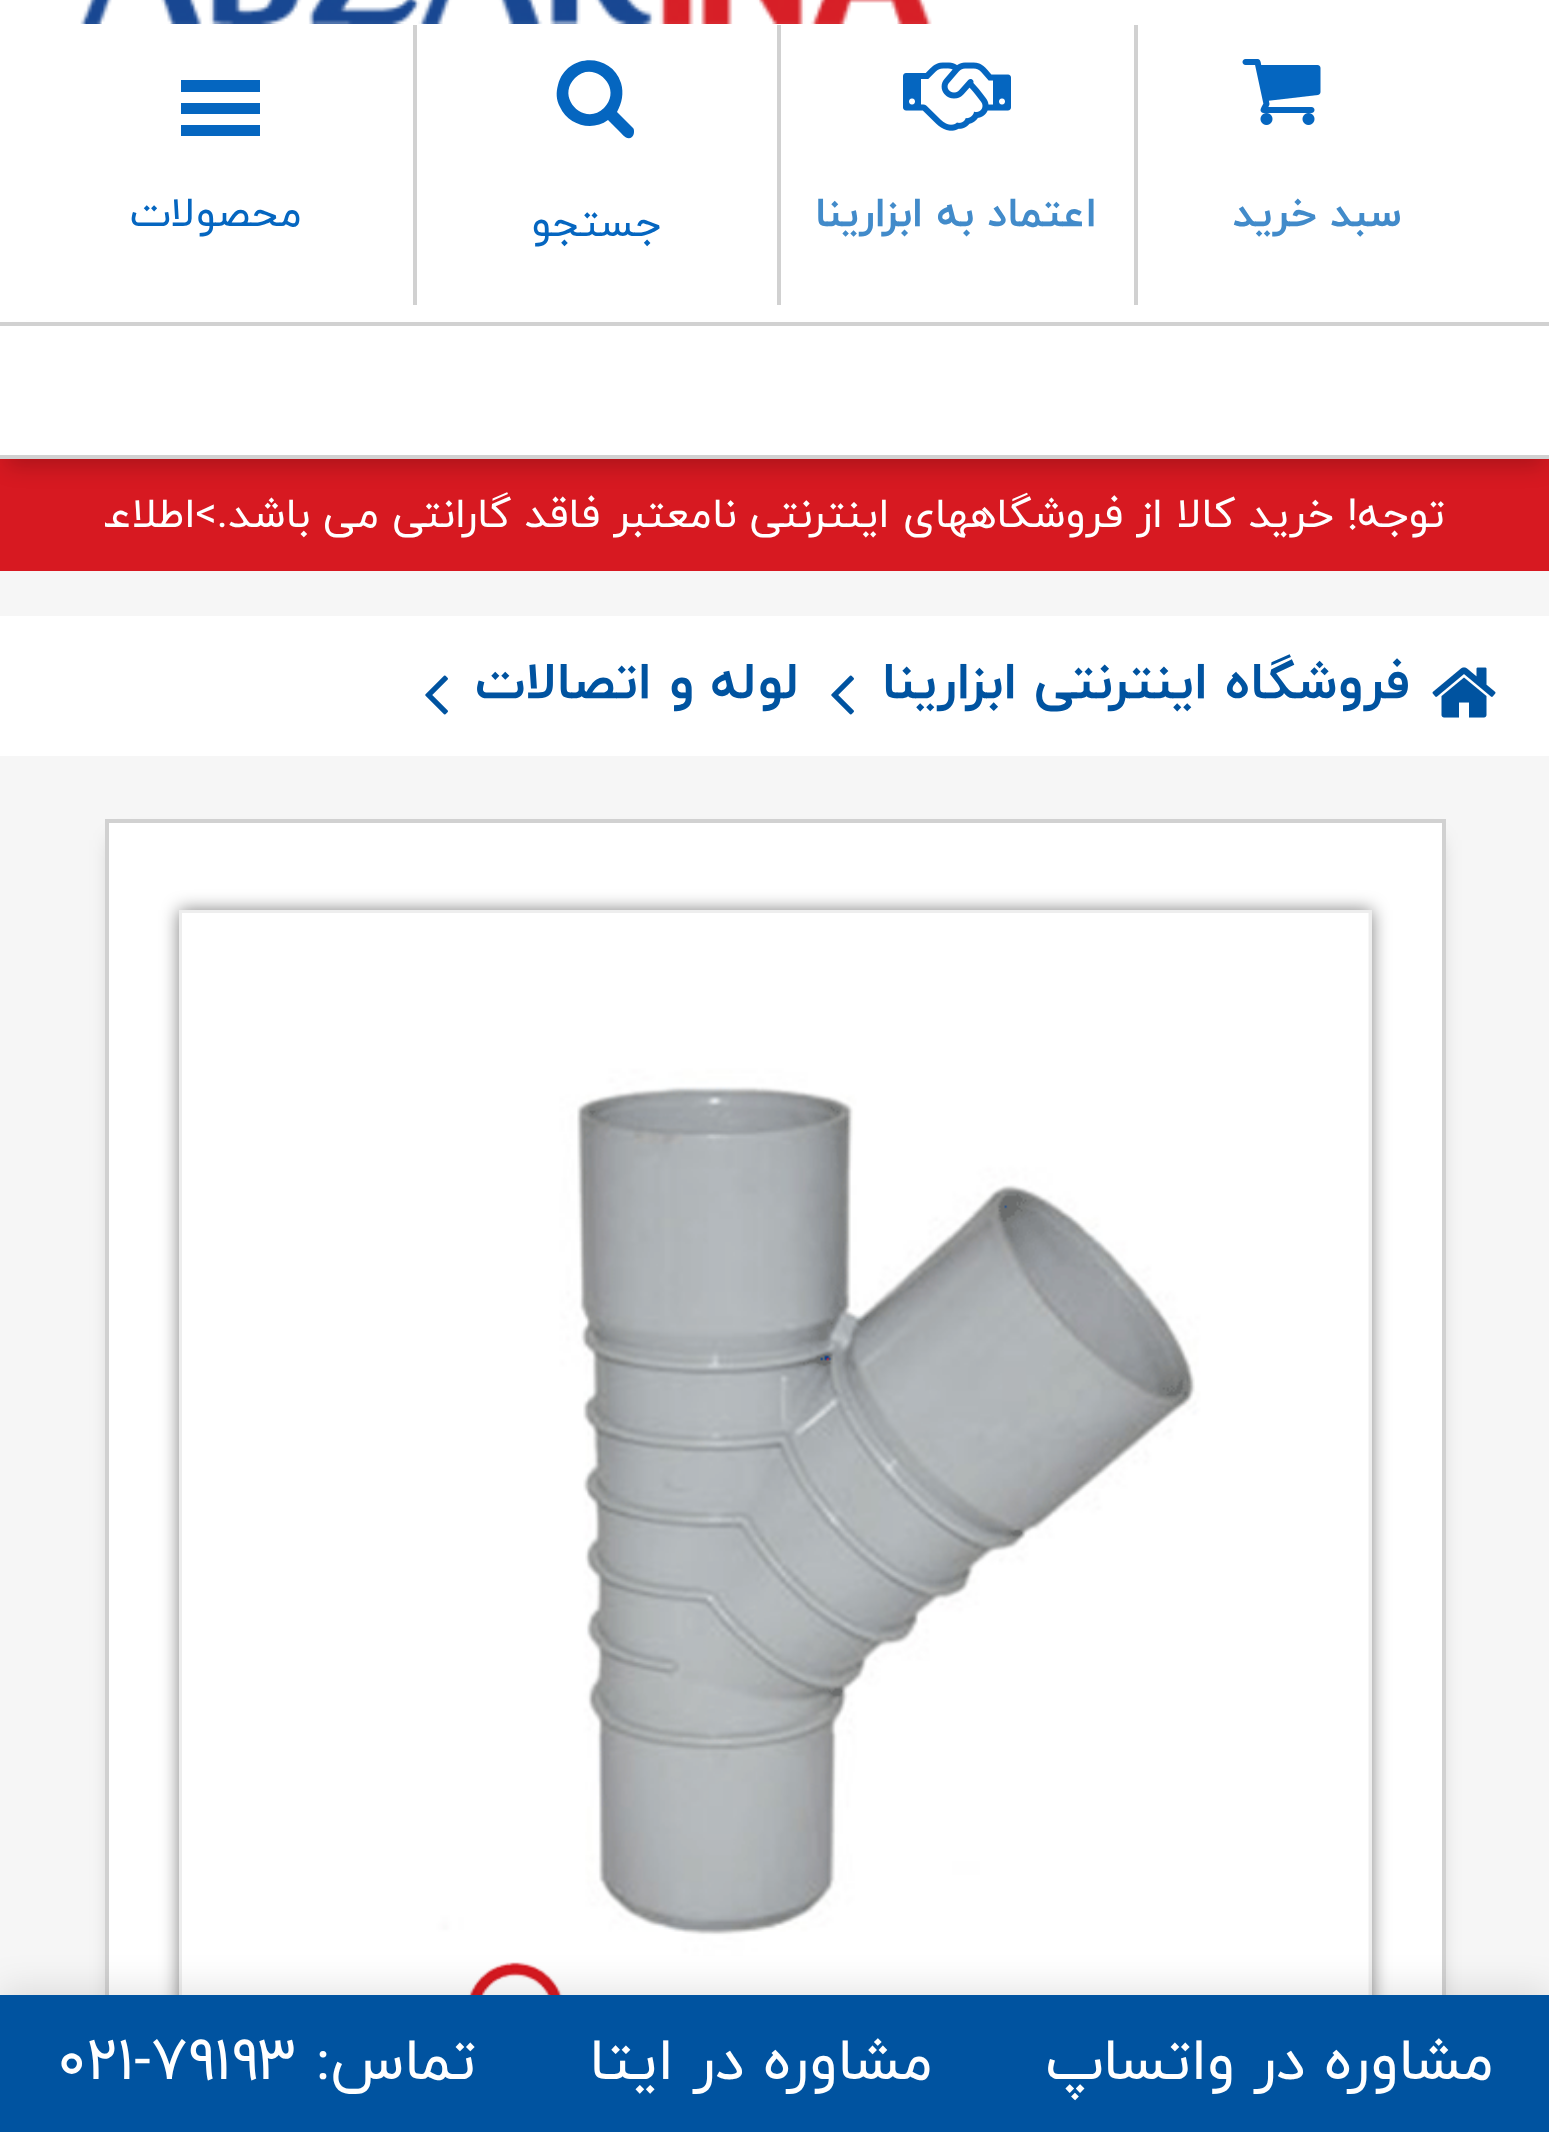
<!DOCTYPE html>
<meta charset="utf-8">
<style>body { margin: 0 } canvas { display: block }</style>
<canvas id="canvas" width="1549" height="2132"></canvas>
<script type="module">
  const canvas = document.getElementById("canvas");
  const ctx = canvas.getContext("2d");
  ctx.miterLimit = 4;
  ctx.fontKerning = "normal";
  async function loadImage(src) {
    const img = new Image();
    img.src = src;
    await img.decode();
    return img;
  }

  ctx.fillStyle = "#f6f6f6";
  ctx.fillRect(0, 0, 1549, 2132);
  ctx.fillStyle = "#ffffff";
  ctx.fillRect(0, 0, 1549, 322);
  ctx.drawImage(await loadImage("img1.png"), 80, 0, 852, 24);
  ctx.drawImage(await loadImage("img2.png"), 1242, 59, 79, 66);
  ctx.direction = "rtl";
  ctx.font = "bold 42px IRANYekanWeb";
  ctx.fillStyle = "#428bca";
  ctx.fillText("سبد خرید", 1402, 226);
  ctx.fillStyle = "#d1d1d1";
  ctx.fillRect(1134, 25, 4, 280);
  ctx.fillRect(777, 25, 4, 280);
  ctx.drawImage(await loadImage("img3.png"), 903, 62, 108, 69);
  ctx.fillStyle = "#428bca";
  ctx.fillText("اعتماد به ابزارینا", 1097, 226);
  ctx.fillStyle = "#d1d1d1";
  ctx.fillRect(413, 25, 4, 280);
  ctx.fillStyle = "#0566c0";
  ctx.beginPath();
  ctx.moveTo(604, 108);
  ctx.bezierCurveTo(624, 88, 594, 59, 575, 78);
  ctx.bezierCurveTo(555, 98, 585, 127, 604, 108);
  ctx.closePath();
  ctx.moveTo(634, 132);
  ctx.bezierCurveTo(634, 134, 633, 136, 632, 137);
  ctx.bezierCurveTo(627, 141, 622, 134, 619, 131);
  ctx.lineTo(608, 120);
  ctx.bezierCurveTo(592, 132, 568, 125, 560, 107);
  ctx.bezierCurveTo(556, 100, 556, 92, 558, 85);
  ctx.bezierCurveTo(566, 53, 611, 52, 621, 83);
  ctx.bezierCurveTo(624, 93, 622, 103, 617, 112);
  ctx.lineTo(633, 128);
  ctx.bezierCurveTo(634, 129, 634, 130, 634, 132);
  ctx.closePath();
  ctx.fill();
  ctx.font = "42px IRANYekanWeb";
  ctx.fillText("جستجو", 661, 236);
  ctx.beginPath();
  ctx.moveTo(181, 136);
  ctx.lineTo(260, 136);
  ctx.lineTo(260, 125);
  ctx.lineTo(181, 125);
  ctx.closePath();
  ctx.moveTo(181, 80);
  ctx.lineTo(181, 92);
  ctx.lineTo(260, 92);
  ctx.lineTo(260, 80);
  ctx.closePath();
  ctx.moveTo(181, 114);
  ctx.lineTo(260, 114);
  ctx.lineTo(260, 103);
  ctx.lineTo(181, 103);
  ctx.closePath();
  ctx.fill();
  ctx.fillText("محصولات", 302, 226);
  ctx.fillStyle = "#d71921";
  ctx.fillRect(0, 459, 1549, 112);
  ctx.fillStyle = "rgba(0, 0, 0, 0.2)";
  ctx.filter = "blur(10.5px)";
  ctx.beginPath();
  ctx.rect(7, 343, 1537, 123);
  ctx.fill();
  ctx.filter = "none";
  ctx.fillStyle = "#ffffff";
  ctx.fillRect(0, 326, 1549, 129);
  ctx.fillStyle = "#d1d1d1";
  ctx.fillRect(0, 322, 1549, 4);
  ctx.fillRect(0, 455, 1549, 4);
  ctx.save();
  ctx.beginPath();
  ctx.rect(105, 459, 1341, 112);
  ctx.clip();
  ctx.fillStyle = "#ffffff";
  ctx.fillText("توجه! خرید کالا از فروشگاههای اینترنتی نامعتبر فاقد گارانتی می باشد.>اطلاعات بیشتر...", 1445, 527);
  ctx.restore();
  ctx.fillStyle = "#ffffff";
  ctx.fillRect(0, 616, 1549, 140);
  ctx.drawImage(await loadImage("img4.png"), 1432, 667, 64, 51);
  ctx.font = "bold 52.5px IRANYekanWeb";
  ctx.fillStyle = "#0053a0";
  ctx.fillText("فروشگاه اینترنتی ابزارینا", 1410, 698);
  ctx.drawImage(await loadImage("img5.png"), 831, 675, 23, 40);
  ctx.fillText("لوله و اتصالات", 799, 698);
  ctx.drawImage(await loadImage("img5.png"), 425, 675, 23, 40);
  ctx.fillStyle = "rgba(0, 0, 0, 0.2)";
  ctx.filter = "blur(10.5px)";
  ctx.beginPath();
  ctx.rect(112, 840, 1327, 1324);
  ctx.fill();
  ctx.filter = "none";
  ctx.fillStyle = "#ffffff";
  ctx.fillRect(109, 823, 1333, 1172);
  ctx.strokeStyle = "#d1d1d1";
  ctx.lineWidth = 4;
  ctx.strokeRect(107, 821, 1337, 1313);
  ctx.fillStyle = "rgba(0, 0, 0, 0.5)";
  ctx.filter = "blur(9px)";
  ctx.beginPath();
  ctx.rect(179, 910, 1193, 1194);
  ctx.fill();
  ctx.filter = "none";
  ctx.strokeStyle = "#eeeeee";
  ctx.strokeRect(181, 912, 1189, 1190);
  ctx.drawImage(await loadImage("img6.png"), 182, 913, 1187, 1082);
  ctx.fillStyle = "rgba(0, 0, 0, 0.1)";
  ctx.filter = "blur(17.5px)";
  ctx.beginPath();
  ctx.rect(0, 1988, 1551, 140);
  ctx.fill();
  ctx.filter = "none";
  ctx.fillStyle = "#0053a0";
  ctx.fillRect(0, 1995, 1549, 137);
  ctx.font = "59.5px IRANYekanWeb";
  ctx.fillStyle = "#ffffff";
  ctx.fillText("مشاوره در واتساپ", 1494, 2079);
  ctx.fillText("مشاوره در ایتا", 933, 2079);
  ctx.fillText("تماس:", 476, 2079);
  ctx.direction = "ltr";
  ctx.fillText("۰۲۱-۷۹۱۹۳", 57, 2079);
</script>
